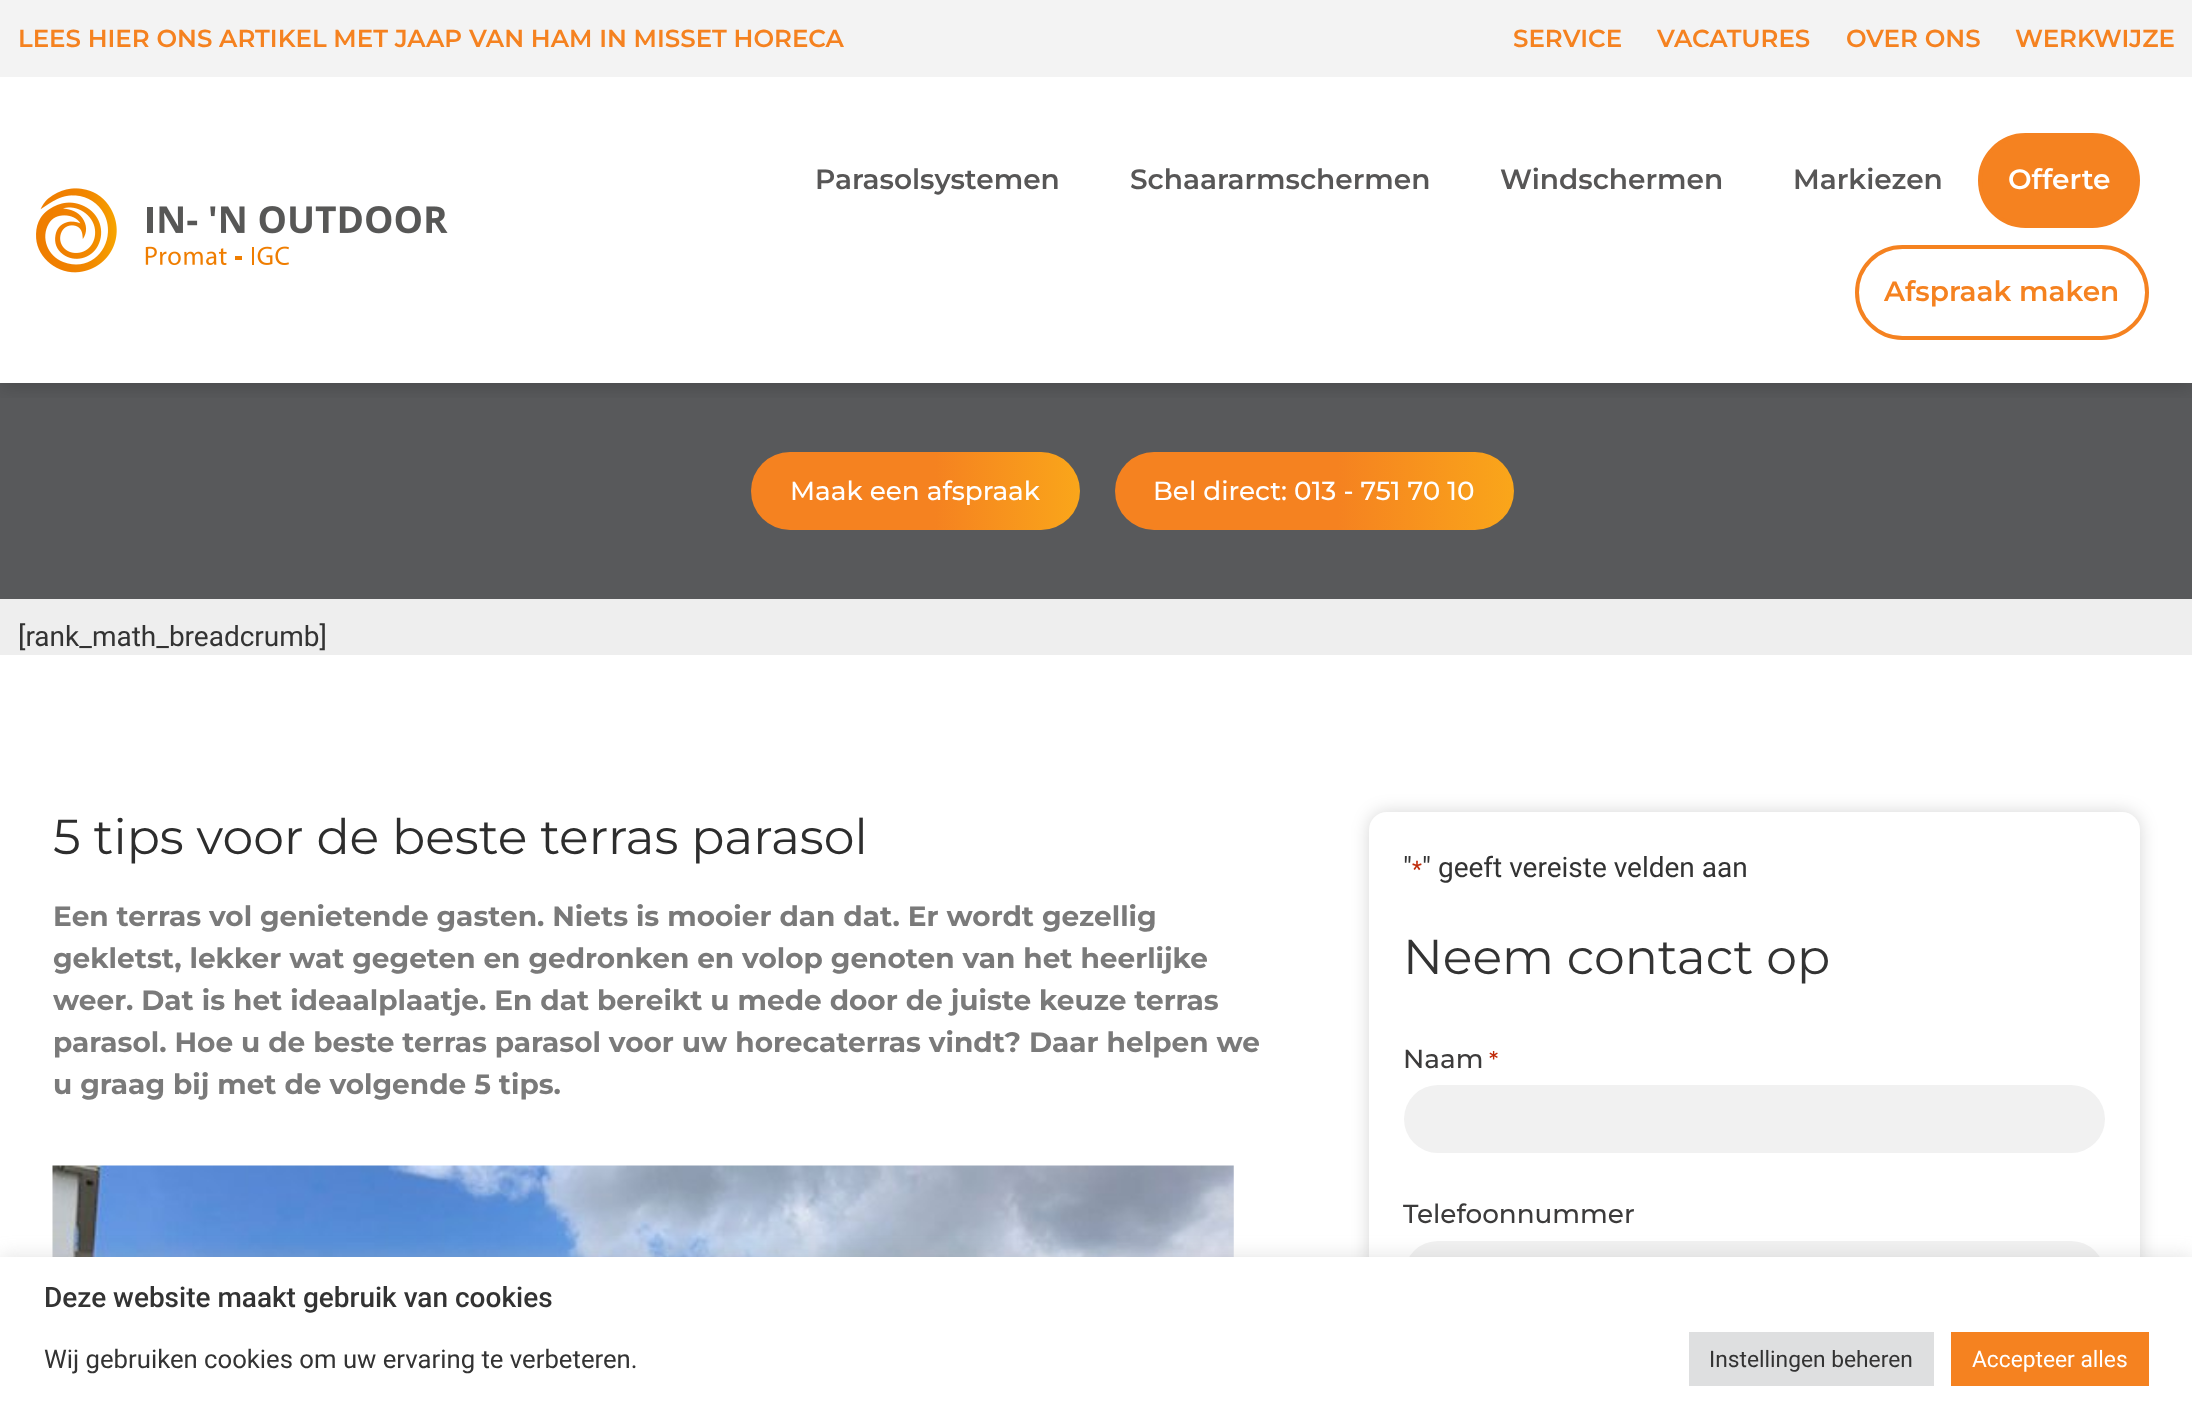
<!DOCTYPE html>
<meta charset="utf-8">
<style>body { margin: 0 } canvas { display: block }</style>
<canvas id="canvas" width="2192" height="1418"></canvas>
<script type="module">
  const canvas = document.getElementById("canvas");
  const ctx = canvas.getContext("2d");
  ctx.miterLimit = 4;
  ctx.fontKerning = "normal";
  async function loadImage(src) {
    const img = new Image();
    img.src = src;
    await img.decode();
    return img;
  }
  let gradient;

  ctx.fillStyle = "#ffffff";
  ctx.fillRect(0, 0, 2192, 1418);
  ctx.fillStyle = "#58595b";
  ctx.fillRect(0, 383, 2192, 216);
  ctx.save();
  ctx.beginPath();
  ctx.rect(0, 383, 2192, 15);
  ctx.clip();
  ctx.fillStyle = "rgba(0, 0, 0, 0.17)";
  ctx.filter = "blur(9px)";
  ctx.beginPath();
  ctx.roundRect(0, 81, 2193, 306, 2);
  ctx.fill();
  ctx.filter = "none";
  ctx.restore();
  ctx.fillStyle = "#f3f3f3";
  ctx.fillRect(0, 0, 2192, 77);
  ctx.font = "600 24.5px Montserrat";
  ctx.fillStyle = "#f58220";
  ctx.fillText("LEES HIER ONS ARTIKEL MET JAAP VAN HAM IN MISSET HORECA", 18, 47);
  ctx.fillText("SERVICE", 1513, 47);
  ctx.fillText("VACATURES", 1657, 47);
  ctx.fillText("OVER ONS", 1846, 47);
  ctx.fillText("WERKWIJZE", 2015, 47);
  ctx.drawImage(await loadImage("img1.png"), 36, 188, 412, 85);
  ctx.font = "600 28px Montserrat";
  ctx.fillStyle = "#575656";
  ctx.fillText("Parasolsystemen", 815, 189);
  ctx.fillText("Schaararmschermen", 1130, 189);
  ctx.fillText("Windschermen", 1500, 189);
  ctx.fillText("Markiezen", 1793, 189);
  ctx.fillStyle = "#f58220";
  ctx.beginPath();
  ctx.roundRect(1980, 135, 158, 91, 45.5);
  ctx.fill();
  ctx.strokeStyle = "#f58220";
  ctx.lineWidth = 4;
  ctx.stroke();
  ctx.fillStyle = "#ffffff";
  ctx.fillText("Offerte", 2008, 189);
  ctx.beginPath();
  ctx.roundRect(1857, 247, 290, 91, 45.5);
  ctx.stroke();
  ctx.fillStyle = "#f58220";
  ctx.fillText("Afspraak maken", 1884, 301);
  gradient = ctx.createLinearGradient(751, 491, 1080, 491);
  gradient.addColorStop(0.56, "#f58220");
  gradient.addColorStop(1, "#faa61a");
  ctx.fillStyle = gradient;
  ctx.beginPath();
  ctx.roundRect(751, 452, 329, 78, 39);
  ctx.fill();
  ctx.font = "500 26.25px Montserrat";
  ctx.fillStyle = "#ffffff";
  ctx.fillText("Maak een afspraak", 790, 500);
  gradient = ctx.createLinearGradient(1115, 491, 1514, 491);
  gradient.addColorStop(0.56, "#f58220");
  gradient.addColorStop(1, "#faa61a");
  ctx.fillStyle = gradient;
  ctx.beginPath();
  ctx.roundRect(1115, 452, 399, 78, 39);
  ctx.fill();
  ctx.fillStyle = "#ffffff";
  ctx.fillText("Bel direct: 013 - 751 70 10", 1153, 500);
  ctx.fillStyle = "#eeeeee";
  ctx.fillRect(0, 599, 2192, 56);
  ctx.font = "28px Roboto";
  ctx.fillStyle = "#333333";
  ctx.fillText("[rank_math_breadcrumb]", 18, 646);
  ctx.font = "49px Montserrat";
  ctx.fillStyle = "#2d2d2d";
  ctx.fillText("5 tips voor de beste terras parasol", 53, 854);
  ctx.font = "bold 28px Montserrat";
  ctx.fillStyle = "#7a7a7a";
  ctx.fillText("Een terras vol genietende gasten. Niets is mooier dan dat. Er wordt gezellig", 53, 926);
  ctx.fillText("gekletst, lekker wat gegeten en gedronken en volop genoten van het heerlijke", 53, 968);
  ctx.fillText("weer. Dat is het ideaalplaatje. En dat bereikt u mede door de juiste keuze terras", 53, 1010);
  ctx.fillText("parasol. Hoe u de beste terras parasol voor uw horecaterras vindt? Daar helpen we", 53, 1052);
  ctx.fillText("u graag bij met de volgende 5 tips.", 53, 1094);
  ctx.drawImage(await loadImage("img2.png"), 52, 1165, 1182, 92);
  ctx.fillStyle = "rgba(0, 0, 0, 0.16)";
  ctx.filter = "blur(9px)";
  ctx.beginPath();
  ctx.roundRect(1369, 812, 771, 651, 18);
  ctx.fill();
  ctx.filter = "none";
  ctx.fillStyle = "#ffffff";
  ctx.beginPath();
  ctx.roundRect(1369, 812, 771, 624, 18);
  ctx.fill();
  ctx.font = "28px Roboto";
  ctx.fillStyle = "#333333";
  ctx.fillText("\"", 1403, 877);
  ctx.font = "23px Roboto";
  ctx.fillStyle = "#c02b0a";
  ctx.fillText("*", 1412, 877);
  ctx.font = "28px Roboto";
  ctx.fillStyle = "#333333";
  ctx.fillText("\" geeft vereiste velden aan", 1422, 877);
  ctx.font = "49px Montserrat";
  ctx.fillText("Neem contact op", 1403, 974);
  ctx.font = "500 26.25px Montserrat";
  ctx.fillStyle = "#3c3b3b";
  ctx.fillText("Naam", 1403, 1068);
  ctx.font = "500 23px Montserrat";
  ctx.fillStyle = "#c02b0a";
  ctx.fillText("*", 1489, 1068);
  ctx.fillStyle = "#f1f1f1";
  ctx.beginPath();
  ctx.roundRect(1404, 1085, 701, 68, 34);
  ctx.fill();
  ctx.font = "500 26.25px Montserrat";
  ctx.fillStyle = "#3c3b3b";
  ctx.fillText("Telefoonnummer", 1403, 1223);
  ctx.fillStyle = "#f1f1f1";
  ctx.beginPath();
  ctx.roundRect(1404, 1241, 701, 68, 34);
  ctx.fill();
  ctx.fillStyle = "rgba(172, 171, 171, 0.3)";
  ctx.filter = "blur(9px)";
  ctx.beginPath();
  ctx.rect(0, 1255, 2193, 163);
  ctx.fill();
  ctx.filter = "none";
  ctx.fillStyle = "#ffffff";
  ctx.fillRect(0, 1257, 2192, 161);
  ctx.font = "500 28px Roboto";
  ctx.fillStyle = "#333333";
  ctx.fillText("Deze website maakt gebruik van cookies", 44, 1307);
  ctx.font = "25.7px Roboto";
  ctx.fillText("Wij gebruiken cookies om uw ervaring te verbeteren.", 44, 1368);
  ctx.fillStyle = "#dedfe0";
  ctx.fillRect(1689, 1332, 245, 54);
  ctx.font = "22.75px Roboto";
  ctx.fillStyle = "#333333";
  ctx.fillText("Instellingen beheren", 1709, 1367);
  ctx.fillStyle = "#f58220";
  ctx.fillRect(1951, 1332, 198, 54);
  ctx.fillStyle = "#ffffff";
  ctx.fillText("Accepteer alles", 1972, 1367);
</script>
